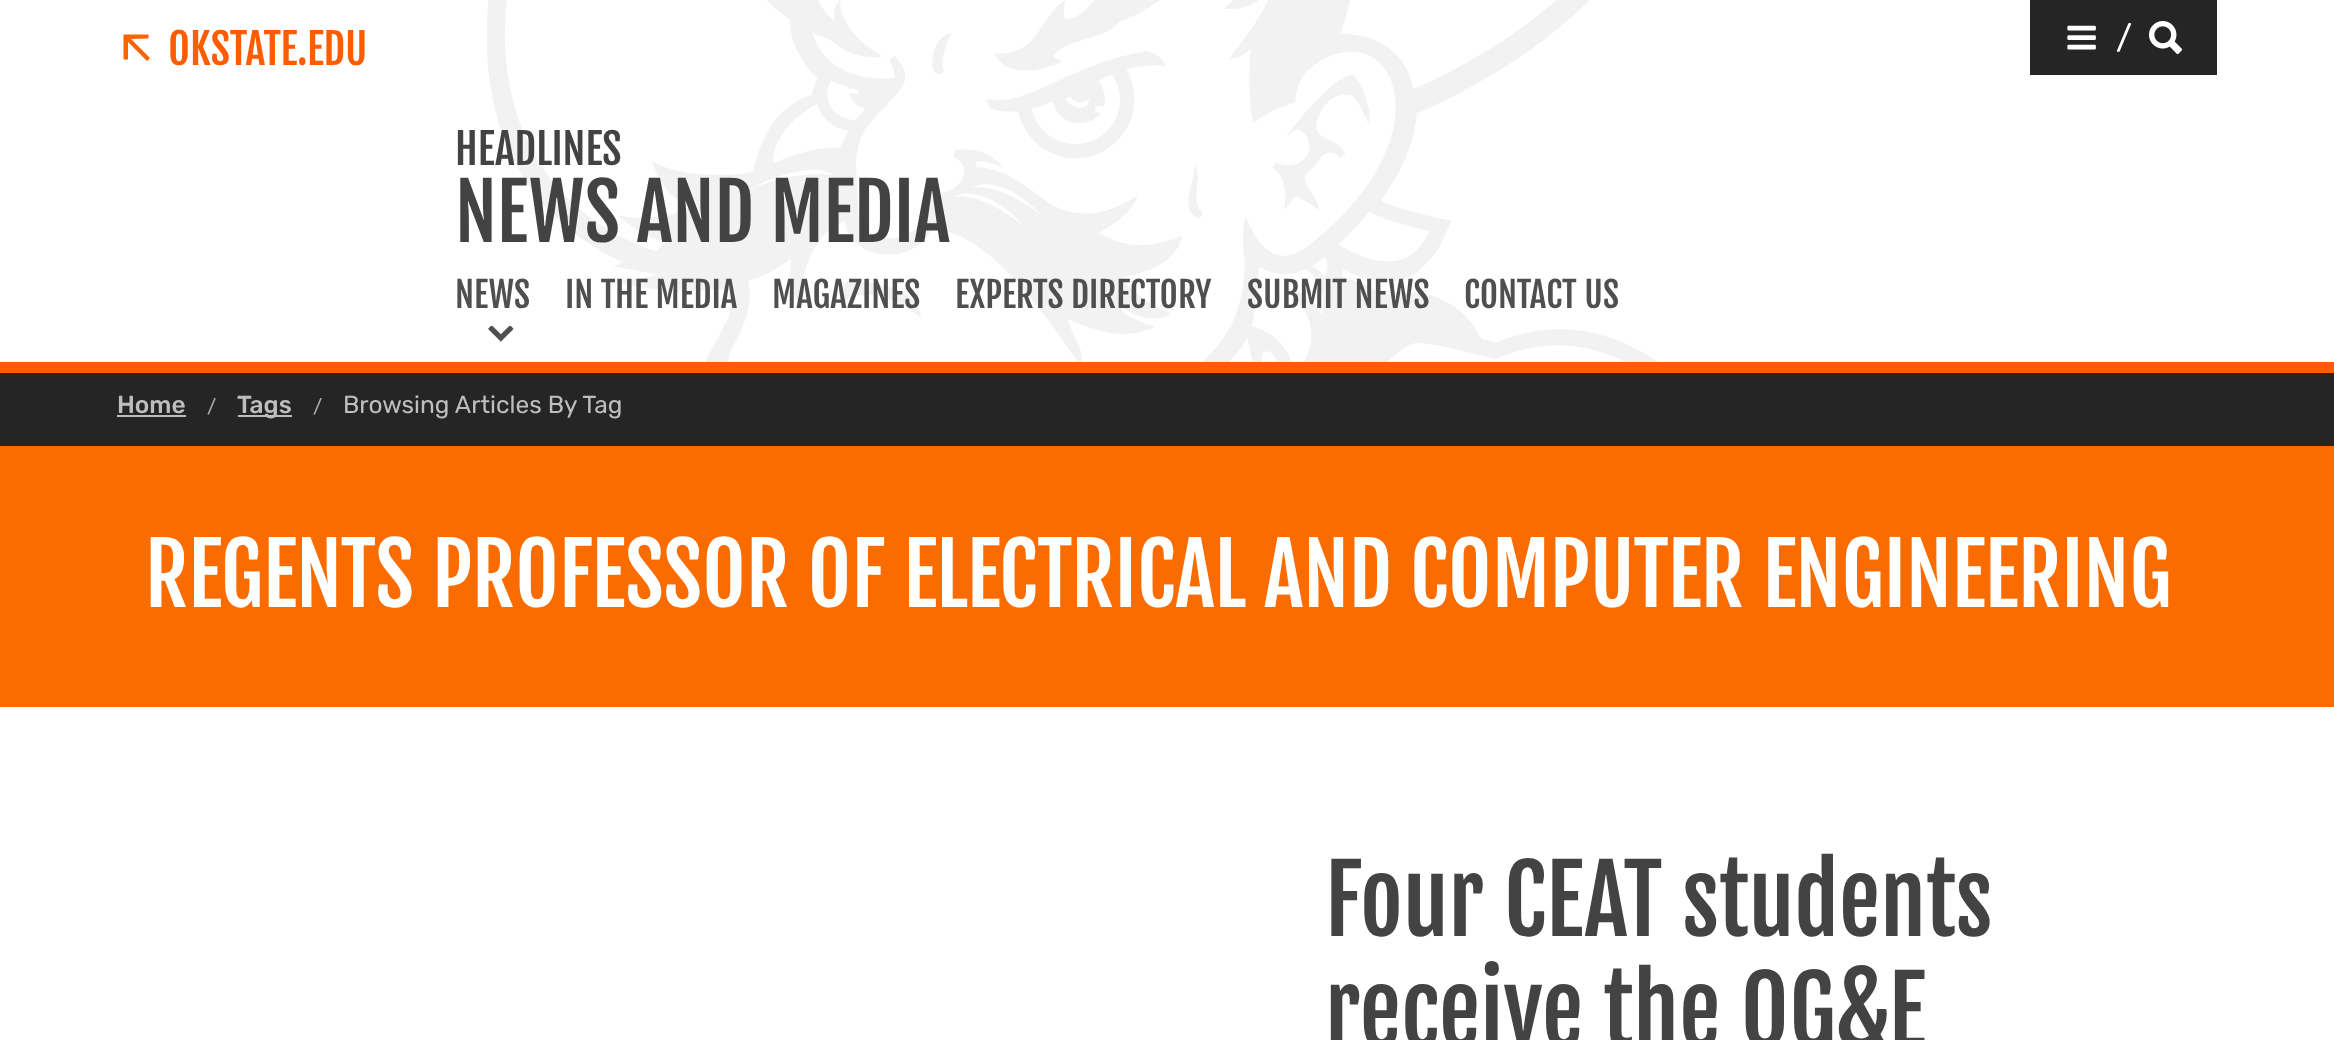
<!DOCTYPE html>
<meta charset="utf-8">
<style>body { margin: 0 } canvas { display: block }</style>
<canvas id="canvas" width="2334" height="1040"></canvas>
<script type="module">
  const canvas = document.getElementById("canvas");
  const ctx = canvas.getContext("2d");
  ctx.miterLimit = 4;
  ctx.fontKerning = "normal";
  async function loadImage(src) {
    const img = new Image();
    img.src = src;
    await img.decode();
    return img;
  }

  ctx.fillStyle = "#ffffff";
  ctx.fillRect(0, 0, 2334, 1040);
  ctx.fillStyle = "#fe5c00";
  ctx.fillRect(0, 362, 2334, 11);
  ctx.drawImage(await loadImage("img1.png"), 487, 0, 1171, 362);
  ctx.fillStyle = "#fa6400";
  ctx.beginPath();
  ctx.moveTo(147, 61);
  ctx.lineTo(150, 58);
  ctx.lineTo(131, 39);
  ctx.lineTo(148.5, 38.5);
  ctx.lineTo(148.5, 34.5);
  ctx.lineTo(123.5, 34.5);
  ctx.lineTo(123.5, 59.5);
  ctx.lineTo(128, 59.5);
  ctx.lineTo(128, 42);
  ctx.closePath();
  ctx.fill("evenodd");
  ctx.font = "42px Fjalla One";
  ctx.fillStyle = "#fe5c00";
  ctx.fillText("OKSTATE.EDU", 168, 65);
  ctx.fillStyle = "#252525";
  ctx.fillRect(2030, 0, 187, 75);
  ctx.drawImage(await loadImage("img2.png"), 2067, 25, 29, 25);
  ctx.font = "33px Rubik";
  ctx.fillStyle = "#ffffff";
  ctx.fillText("/", 2116, 49);
  ctx.drawImage(await loadImage("img3.png"), 2149, 21, 33, 33);
  ctx.font = "42px Fjalla One";
  ctx.fillStyle = "#434343";
  ctx.fillText("HEADLINES", 455, 165);
  ctx.font = "77px Fjalla One";
  ctx.fillText("NEWS AND MEDIA", 455, 242);
  ctx.font = "35px Fjalla One";
  ctx.fillStyle = "#4f4f4f";
  ctx.fillText("NEWS", 455, 308);
  ctx.drawImage(await loadImage("img4.png"), 488, 326, 26, 16);
  ctx.fillText("IN THE MEDIA", 565, 308);
  ctx.fillText("MAGAZINES", 772, 308);
  ctx.fillText("EXPERTS DIRECTORY", 955, 308);
  ctx.fillText("SUBMIT NEWS", 1247, 308);
  ctx.fillText("CONTACT US", 1464, 308);
  ctx.fillStyle = "#252525";
  ctx.fillRect(0, 373, 2334, 73);
  ctx.font = "500 24.5px Rubik";
  ctx.fillStyle = "#bebebe";
  ctx.fillText("Home", 117, 413);
  ctx.fillRect(117, 415, 69, 2);
  ctx.font = "19px Rubik";
  ctx.fillStyle = "#aaaaaa";
  ctx.fillText("/", 207, 413);
  ctx.fillStyle = "#bebebe";
  ctx.fillRect(238, 415, 54, 2);
  ctx.font = "500 24.5px Rubik";
  ctx.fillText("Tags", 237, 413);
  ctx.font = "19px Rubik";
  ctx.fillStyle = "#aaaaaa";
  ctx.fillText("/", 313, 413);
  ctx.font = "24.5px Rubik";
  ctx.fillStyle = "#bebebe";
  ctx.fillText("Browsing Articles By Tag", 343, 413);
  ctx.fillStyle = "#fb6c00";
  ctx.fillRect(0, 446, 2334, 261);
  ctx.font = "84px Fjalla One";
  ctx.fillStyle = "#ffffff";
  ctx.fillText("REGENTS PROFESSOR OF ELECTRICAL AND COMPUTER ENGINEERING", 145, 607);
  ctx.font = "92.75px Fjalla One";
  ctx.fillStyle = "#434343";
  ctx.fillText("Four CEAT students", 1325, 936);
  ctx.fillText("receive the OG&E", 1325, 1047);
</script>
